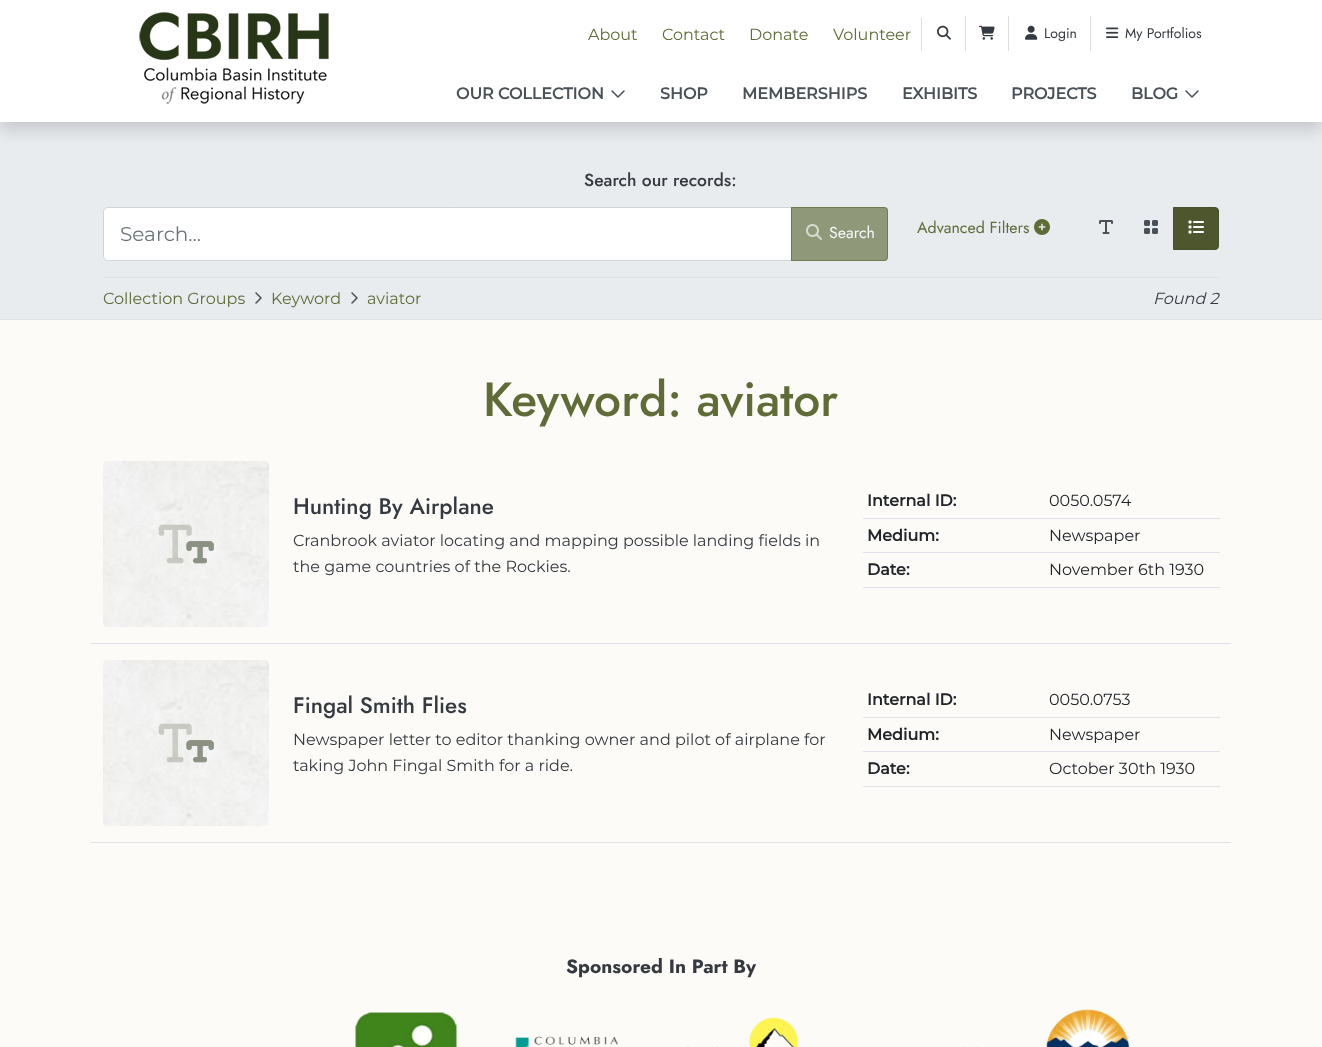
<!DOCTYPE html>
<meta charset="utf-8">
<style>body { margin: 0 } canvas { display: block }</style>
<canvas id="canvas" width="1322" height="1047"></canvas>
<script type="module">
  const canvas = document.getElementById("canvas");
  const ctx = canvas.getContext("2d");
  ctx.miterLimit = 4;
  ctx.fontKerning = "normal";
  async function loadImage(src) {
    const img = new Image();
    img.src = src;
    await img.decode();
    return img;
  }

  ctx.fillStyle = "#fcfbf7";
  ctx.fillRect(0, 0, 1322, 1047);
  ctx.fillStyle = "#e9ecef";
  ctx.fillRect(0, 122, 1322, 197);
  ctx.fillStyle = "rgba(0, 0, 0, 0.15)";
  ctx.filter = "blur(8px)";
  ctx.beginPath();
  ctx.rect(0, 8, 1322, 122);
  ctx.fill();
  ctx.filter = "none";
  ctx.fillStyle = "#ffffff";
  ctx.fillRect(0, 0, 1322, 122);
  ctx.drawImage(await loadImage("img1.png"), 139, 12, 190, 92);
  ctx.fillStyle = "#dddddd";
  ctx.fillRect(921, 18, 1, 33);
  ctx.font = "16px Montserrat";
  ctx.fillStyle = "#606c38";
  ctx.fillText("About", 588, 40);
  ctx.fillText("Contact", 662, 40);
  ctx.fillText("Donate", 749, 40);
  ctx.fillText("Volunteer", 833, 40);
  ctx.fillStyle = "#dddddd";
  ctx.fillRect(965, 16, 1, 35);
  ctx.drawImage(await loadImage("img2.png"), 937, 25, 14, 15);
  ctx.fillRect(1008, 16, 1, 35);
  ctx.drawImage(await loadImage("img3.png"), 979, 25, 16, 15);
  ctx.fillRect(1090, 16, 1, 35);
  ctx.drawImage(await loadImage("img4.png"), 1025, 25, 13, 15);
  ctx.font = "14px Jost";
  ctx.fillStyle = "#343a40";
  ctx.fillText("Login", 1044, 38);
  ctx.drawImage(await loadImage("img5.png"), 1106, 27, 13, 11);
  ctx.fillText("My Portfolios", 1125, 38);
  ctx.font = "bold 16px Montserrat";
  ctx.fillStyle = "#495057";
  ctx.fillText("OUR COLLECTION", 456, 99);
  ctx.drawImage(await loadImage("img6.png"), 611, 90, 14, 8);
  ctx.fillText("SHOP", 660, 99);
  ctx.fillText("MEMBERSHIPS", 742, 99);
  ctx.fillText("EXHIBITS", 902, 99);
  ctx.fillText("PROJECTS", 1011, 99);
  ctx.fillText("BLOG", 1131, 99);
  ctx.drawImage(await loadImage("img6.png"), 1185, 90, 14, 8);
  ctx.fillStyle = "#dee2e6";
  ctx.fillRect(0, 319, 1322, 1);
  ctx.font = "500 17.5px Jost";
  ctx.fillStyle = "#343a40";
  ctx.fillText("Search our records:", 584, 186);
  ctx.fillStyle = "#ffffff";
  ctx.beginPath();
  ctx.roundRect(103.5, 207.5, 688, 53, [4.5, 0, 0, 4.5]);
  ctx.fill();
  ctx.strokeStyle = "#ced4da";
  ctx.stroke();
  ctx.font = "20px Montserrat";
  ctx.fillStyle = "#6c757d";
  ctx.fillText("Search...", 120, 241);
  ctx.fillStyle = "rgba(96, 108, 56, 0.65)";
  ctx.beginPath();
  ctx.roundRect(791, 207, 97, 54, [0, 4, 4, 0]);
  ctx.fill();
  ctx.beginPath();
  ctx.roundRect(791.5, 207.5, 96, 53, [0, 3.5, 3.5, 0]);
  ctx.strokeStyle = "rgba(96, 108, 56, 0.65)";
  ctx.stroke();
  ctx.drawImage(await loadImage("img7.png"), 806, 224, 16, 16);
  ctx.font = "16px Jost";
  ctx.fillStyle = "#f7f8f9";
  ctx.fillText("Search", 829, 238);
  ctx.fillStyle = "#606c38";
  ctx.fillText("Advanced Filters", 917, 233);
  ctx.drawImage(await loadImage("img8.png"), 1034, 219, 16, 16);
  ctx.drawImage(await loadImage("img9.png"), 1099, 220, 14, 14);
  ctx.drawImage(await loadImage("img10.png"), 1144, 220, 14, 14);
  ctx.fillStyle = "#4d562d";
  ctx.beginPath();
  ctx.roundRect(1173.5, 207.5, 45, 42, [0, 3.5, 3.5, 0]);
  ctx.fill();
  ctx.strokeStyle = "#48512a";
  ctx.stroke();
  ctx.drawImage(await loadImage("img11.png"), 1188, 220, 16, 14);
  ctx.fillStyle = "#dee2e6";
  ctx.fillRect(103, 277, 1116, 1);
  ctx.font = "16px Montserrat";
  ctx.fillStyle = "#606c38";
  ctx.fillText("Collection Groups", 103, 304);
  ctx.drawImage(await loadImage("img12.png"), 255, 292, 7, 12);
  ctx.fillText("Keyword", 271, 304);
  ctx.drawImage(await loadImage("img12.png"), 351, 292, 7, 12);
  ctx.fillText("aviator", 367, 304);
  ctx.font = "italic 16px Montserrat";
  ctx.fillStyle = "#343a40";
  ctx.fillText("Found 2", 1153, 304);
  ctx.font = "500 48px Jost";
  ctx.fillStyle = "#606c38";
  ctx.fillText("Keyword: aviator", 483, 416);
  ctx.fillStyle = "#dee2e6";
  ctx.fillRect(91, 643, 1140, 1);
  ctx.drawImage(await loadImage("img13.png"), 103, 461, 166, 166);
  ctx.font = "500 22.5px Jost";
  ctx.fillStyle = "#343a40";
  ctx.fillText("Hunting By Airplane", 293, 514);
  ctx.font = "16px Montserrat";
  ctx.fillText("Cranbrook aviator locating and mapping possible landing fields in", 293, 546);
  ctx.fillText("the game countries of the Rockies.", 293, 572);
  ctx.font = "bold 16px Montserrat";
  ctx.fillStyle = "#212529";
  ctx.fillText("Internal ID:", 867, 506);
  ctx.fillStyle = "#dee2e6";
  ctx.fillRect(863, 518, 357, 1);
  ctx.font = "16px Montserrat";
  ctx.fillStyle = "#212529";
  ctx.fillText("0050.0574", 1049, 506);
  ctx.font = "bold 16px Montserrat";
  ctx.fillText("Medium:", 867, 541);
  ctx.fillStyle = "#dee2e6";
  ctx.fillRect(863, 552, 357, 1);
  ctx.font = "16px Montserrat";
  ctx.fillStyle = "#212529";
  ctx.fillText("Newspaper", 1049, 541);
  ctx.font = "bold 16px Montserrat";
  ctx.fillText("Date:", 867, 575);
  ctx.fillStyle = "#dee2e6";
  ctx.fillRect(863, 587, 357, 1);
  ctx.font = "16px Montserrat";
  ctx.fillStyle = "#212529";
  ctx.fillText("November 6th 1930", 1049, 575);
  ctx.fillStyle = "#dee2e6";
  ctx.fillRect(91, 842, 1140, 1);
  ctx.drawImage(await loadImage("img13.png"), 103, 660, 166, 166);
  ctx.font = "500 22.5px Jost";
  ctx.fillStyle = "#343a40";
  ctx.fillText("Fingal Smith Flies", 293, 713);
  ctx.font = "16px Montserrat";
  ctx.fillText("Newspaper letter to editor thanking owner and pilot of airplane for", 293, 745);
  ctx.fillText("taking John Fingal Smith for a ride.", 293, 771);
  ctx.font = "bold 16px Montserrat";
  ctx.fillStyle = "#212529";
  ctx.fillText("Internal ID:", 867, 705);
  ctx.fillStyle = "#dee2e6";
  ctx.fillRect(863, 717, 357, 1);
  ctx.font = "16px Montserrat";
  ctx.fillStyle = "#212529";
  ctx.fillText("0050.0753", 1049, 705);
  ctx.font = "bold 16px Montserrat";
  ctx.fillText("Medium:", 867, 740);
  ctx.fillStyle = "#dee2e6";
  ctx.fillRect(863, 751, 357, 1);
  ctx.font = "16px Montserrat";
  ctx.fillStyle = "#212529";
  ctx.fillText("Newspaper", 1049, 740);
  ctx.font = "bold 16px Montserrat";
  ctx.fillText("Date:", 867, 774);
  ctx.fillStyle = "#dee2e6";
  ctx.fillRect(863, 786, 357, 1);
  ctx.font = "16px Montserrat";
  ctx.fillStyle = "#212529";
  ctx.fillText("October 30th 1930", 1049, 774);
  ctx.font = "bold 19.25px Jost";
  ctx.fillStyle = "#343a40";
  ctx.fillText("Sponsored In Part By", 566, 973);
  ctx.drawImage(await loadImage("img14.png"), 355, 1012, 102, 35);
  ctx.drawImage(await loadImage("img15.png"), 515, 1036, 103, 11);
  ctx.drawImage(await loadImage("img16.png"), 687, 1017, 112, 30);
  ctx.drawImage(await loadImage("img17.png"), 963, 1046, 16, 1);
  ctx.drawImage(await loadImage("img18.png"), 1046, 1009, 84, 38);
</script>
